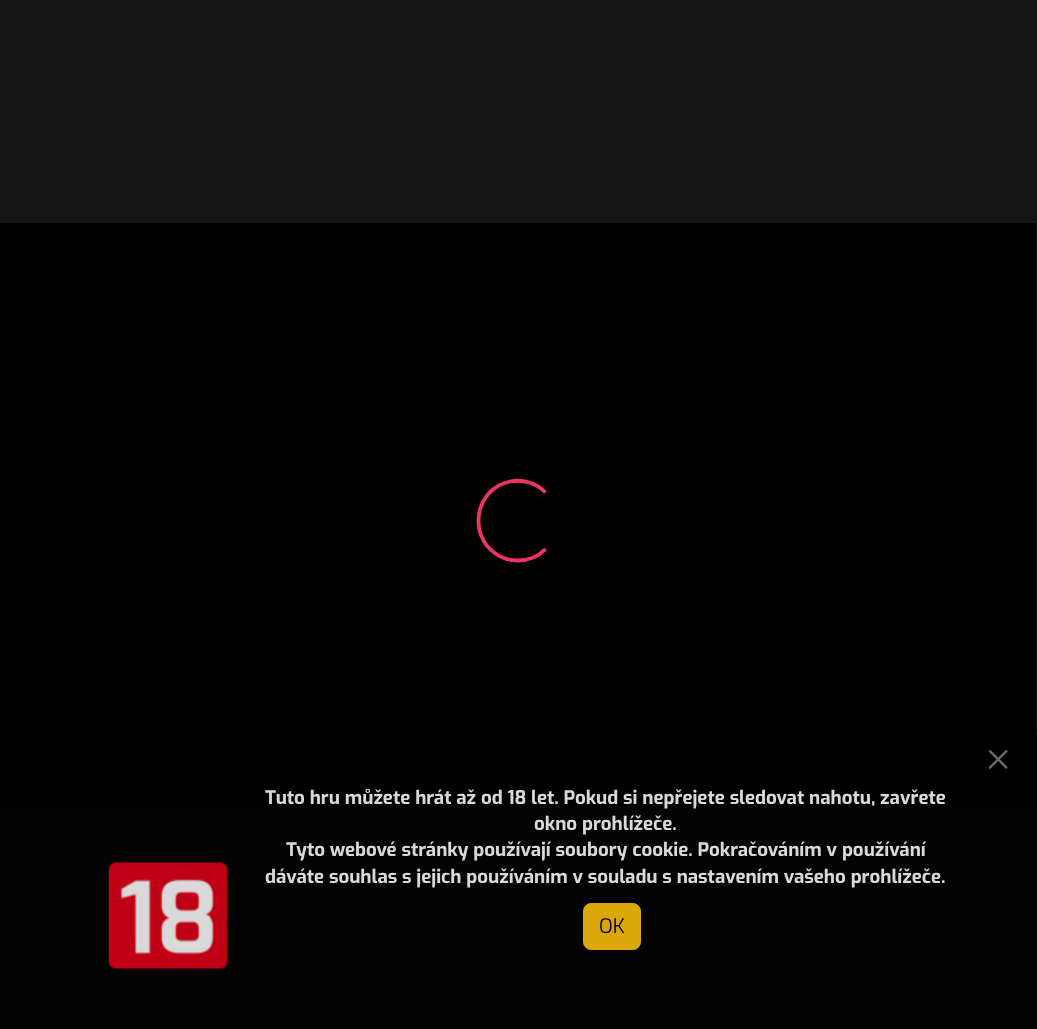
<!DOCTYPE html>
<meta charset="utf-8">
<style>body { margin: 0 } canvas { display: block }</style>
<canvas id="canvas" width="1037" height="1029"></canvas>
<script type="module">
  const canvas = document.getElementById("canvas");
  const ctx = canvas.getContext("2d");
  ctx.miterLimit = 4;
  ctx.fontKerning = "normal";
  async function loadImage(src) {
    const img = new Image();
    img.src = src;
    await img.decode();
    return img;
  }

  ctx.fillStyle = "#151515";
  ctx.fillRect(0, 0, 1037, 1029);
  ctx.fillStyle = "#030303";
  ctx.fillRect(0, 734, 1037, 295);
  ctx.fillStyle = "#000000";
  ctx.fillRect(0, 223, 1036, 583);
  ctx.beginPath();
  ctx.moveTo(545.5, 549);
  ctx.bezierCurveTo(538.5, 556.5, 528, 560.5, 517.5, 560.5);
  ctx.bezierCurveTo(510, 560.5, 502.5, 558.5, 496, 554);
  ctx.bezierCurveTo(467, 534.5, 475.5, 488.5, 510, 481.5);
  ctx.bezierCurveTo(523, 479, 536.5, 483, 545.5, 492.5);
  ctx.strokeStyle = "#f13364";
  ctx.lineWidth = 3.8;
  ctx.stroke();
  ctx.drawImage(await loadImage("img1.png"), 108, 862, 120, 108);
  ctx.drawImage(await loadImage("img2.png"), 989, 750, 19, 19);
  ctx.font = "bold 18.75px Exo";
  ctx.fillStyle = "#d9d9d9";
  ctx.fillText("Tuto hru můžete hrát až od 18 let. Pokud si nepřejete sledovat nahotu, zavřete", 265, 804);
  ctx.fillText("okno prohlížeče.", 534, 830);
  ctx.fillText("Tyto webové stránky používají soubory cookie. Pokračováním v používání", 286, 856);
  ctx.fillText("dáváte souhlas s jejich používáním v souladu s nastavením vašeho prohlížeče.", 265, 883);
  ctx.fillStyle = "#dca709";
  ctx.beginPath();
  ctx.roundRect(583.5, 903.5, 57, 46, 7.5);
  ctx.fill();
  ctx.strokeStyle = "#dca709";
  ctx.lineWidth = 1;
  ctx.stroke();
  ctx.font = "20px Exo";
  ctx.fillStyle = "#030303";
  ctx.fillText("OK", 599, 933);
</script>
